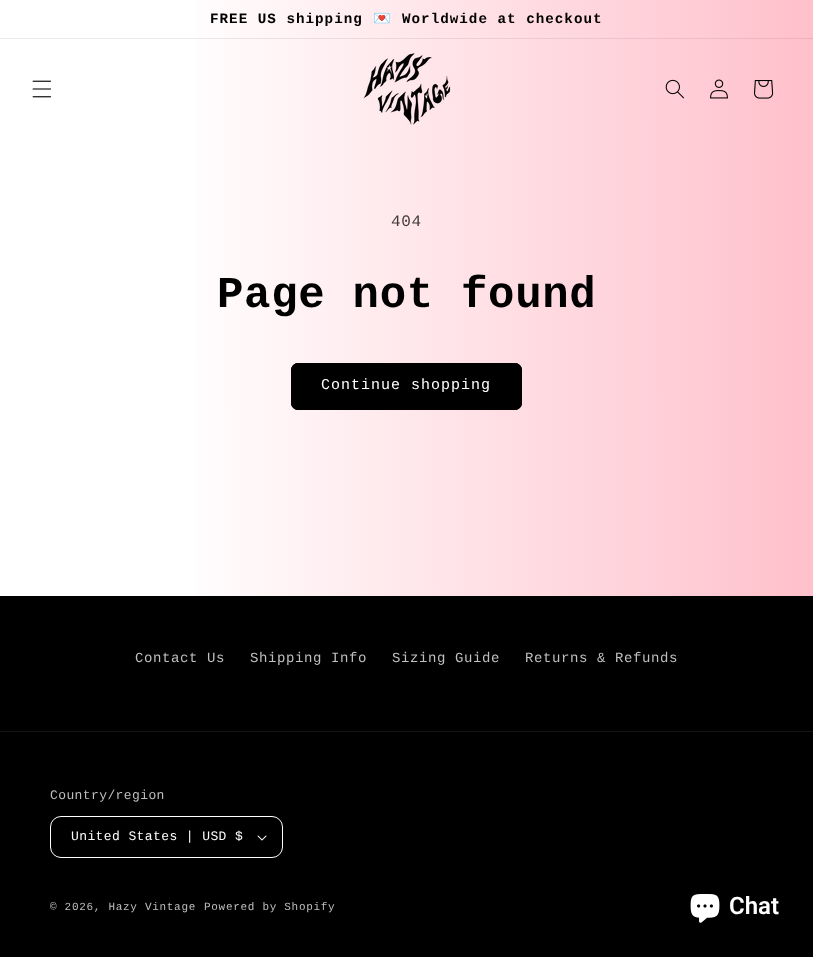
<!DOCTYPE html>
<meta charset="utf-8">
<style>body { margin: 0 } canvas { display: block }</style>
<canvas id="canvas" width="813" height="957"></canvas>
<script type="module">
  const canvas = document.getElementById("canvas");
  const ctx = canvas.getContext("2d");
  ctx.miterLimit = 4;
  ctx.fontKerning = "normal";
  async function loadImage(src) {
    const img = new Image();
    img.src = src;
    await img.decode();
    return img;
  }
  let gradient;

  ctx.fillStyle = "#ffffff";
  ctx.fillRect(0, 0, 813, 957);
  gradient = ctx.createLinearGradient(813, 478, 0, 479);
  gradient.addColorStop(0, "#ffc0cb");
  gradient.addColorStop(0.79, "#ffffff");
  gradient.addColorStop(0.97, "#ffffff");
  ctx.fillStyle = gradient;
  ctx.fillRect(196, 0, 617, 596);
  gradient = ctx.createLinearGradient(813, 478, 0, 479);
  gradient.addColorStop(0, "#ebb1bb");
  gradient.addColorStop(0.79, "#ebebeb");
  gradient.addColorStop(0.97, "#ebebeb");
  ctx.fillStyle = gradient;
  ctx.fillRect(0, 38, 813, 1);
  ctx.letterSpacing = "1px";
  ctx.font = "bold 14.25px Liberation Mono";
  ctx.fillStyle = "#000000";
  ctx.fillText("FREE US shipping", 210, 23);
  ctx.font = "bold 14.25px Noto Color Emoji";
  ctx.fillText("💌", 373, 23);
  ctx.font = "bold 14.25px Liberation Mono";
  ctx.fillText("Worldwide at checkout", 402, 23);
  ctx.drawImage(await loadImage("img1.png"), 32, 80, 20, 18);
  ctx.drawImage(await loadImage("img2.png"), 363, 53, 88, 72);
  ctx.drawImage(await loadImage("img3.png"), 665, 79, 19, 20);
  ctx.drawImage(await loadImage("img4.png"), 710, 79, 18, 20);
  ctx.drawImage(await loadImage("img5.png"), 754, 80, 20, 19);
  ctx.letterSpacing = "0.6px";
  ctx.font = "16px Liberation Mono";
  ctx.fillStyle = "#403a3b";
  ctx.fillText("404", 391, 226);
  ctx.letterSpacing = "0.7px";
  ctx.font = "bold 44px Liberation Mono";
  ctx.fillStyle = "#000000";
  ctx.fillText("Page not found", 217, 307);
  ctx.beginPath();
  ctx.roundRect(291, 363, 231, 47, 7);
  ctx.fill();
  ctx.beginPath();
  ctx.roundRect(291.5, 363.5, 230, 46, 6.5);
  ctx.strokeStyle = "#000000";
  ctx.stroke();
  ctx.letterSpacing = "1px";
  ctx.font = "15px Liberation Mono";
  ctx.fillStyle = "#ffffff";
  ctx.fillText("Continue shopping", 321, 389);
  ctx.fillStyle = "#000000";
  ctx.fillRect(0, 596, 813, 361);
  ctx.letterSpacing = "0.6px";
  ctx.font = "14px Liberation Mono";
  ctx.fillStyle = "#bfbfbf";
  ctx.fillText("Contact Us", 135, 662);
  ctx.fillText("Shipping Info", 250, 662);
  ctx.fillText("Sizing Guide", 392, 662);
  ctx.fillText("Returns & Refunds", 525, 662);
  ctx.fillStyle = "#141414";
  ctx.fillRect(0, 731, 813, 1);
  ctx.letterSpacing = "0.4px";
  ctx.font = "13px Liberation Mono";
  ctx.fillStyle = "#bfbfbf";
  ctx.fillText("Country/region", 50, 799);
  ctx.drawImage(await loadImage("img6.png"), 257, 835, 10, 6);
  ctx.beginPath();
  ctx.roundRect(50.5, 816.5, 232, 41, 10.5);
  ctx.strokeStyle = "#ffffff";
  ctx.stroke();
  ctx.fillStyle = "#ffffff";
  ctx.fillText("United States | USD $", 71, 840);
  ctx.letterSpacing = "0.7px";
  ctx.font = "11px Liberation Mono";
  ctx.fillStyle = "#bfbfbf";
  ctx.fillText("© 2026, Hazy Vintage", 50, 910);
  ctx.fillText("Powered by Shopify", 204, 910);
  ctx.drawImage(await loadImage("img7.png"), 690, 894, 30, 29);
  ctx.letterSpacing = "0px";
  ctx.font = "600 24px Roboto";
  ctx.fillStyle = "#ffffff";
  ctx.fillText("Chat", 729, 914);
</script>
